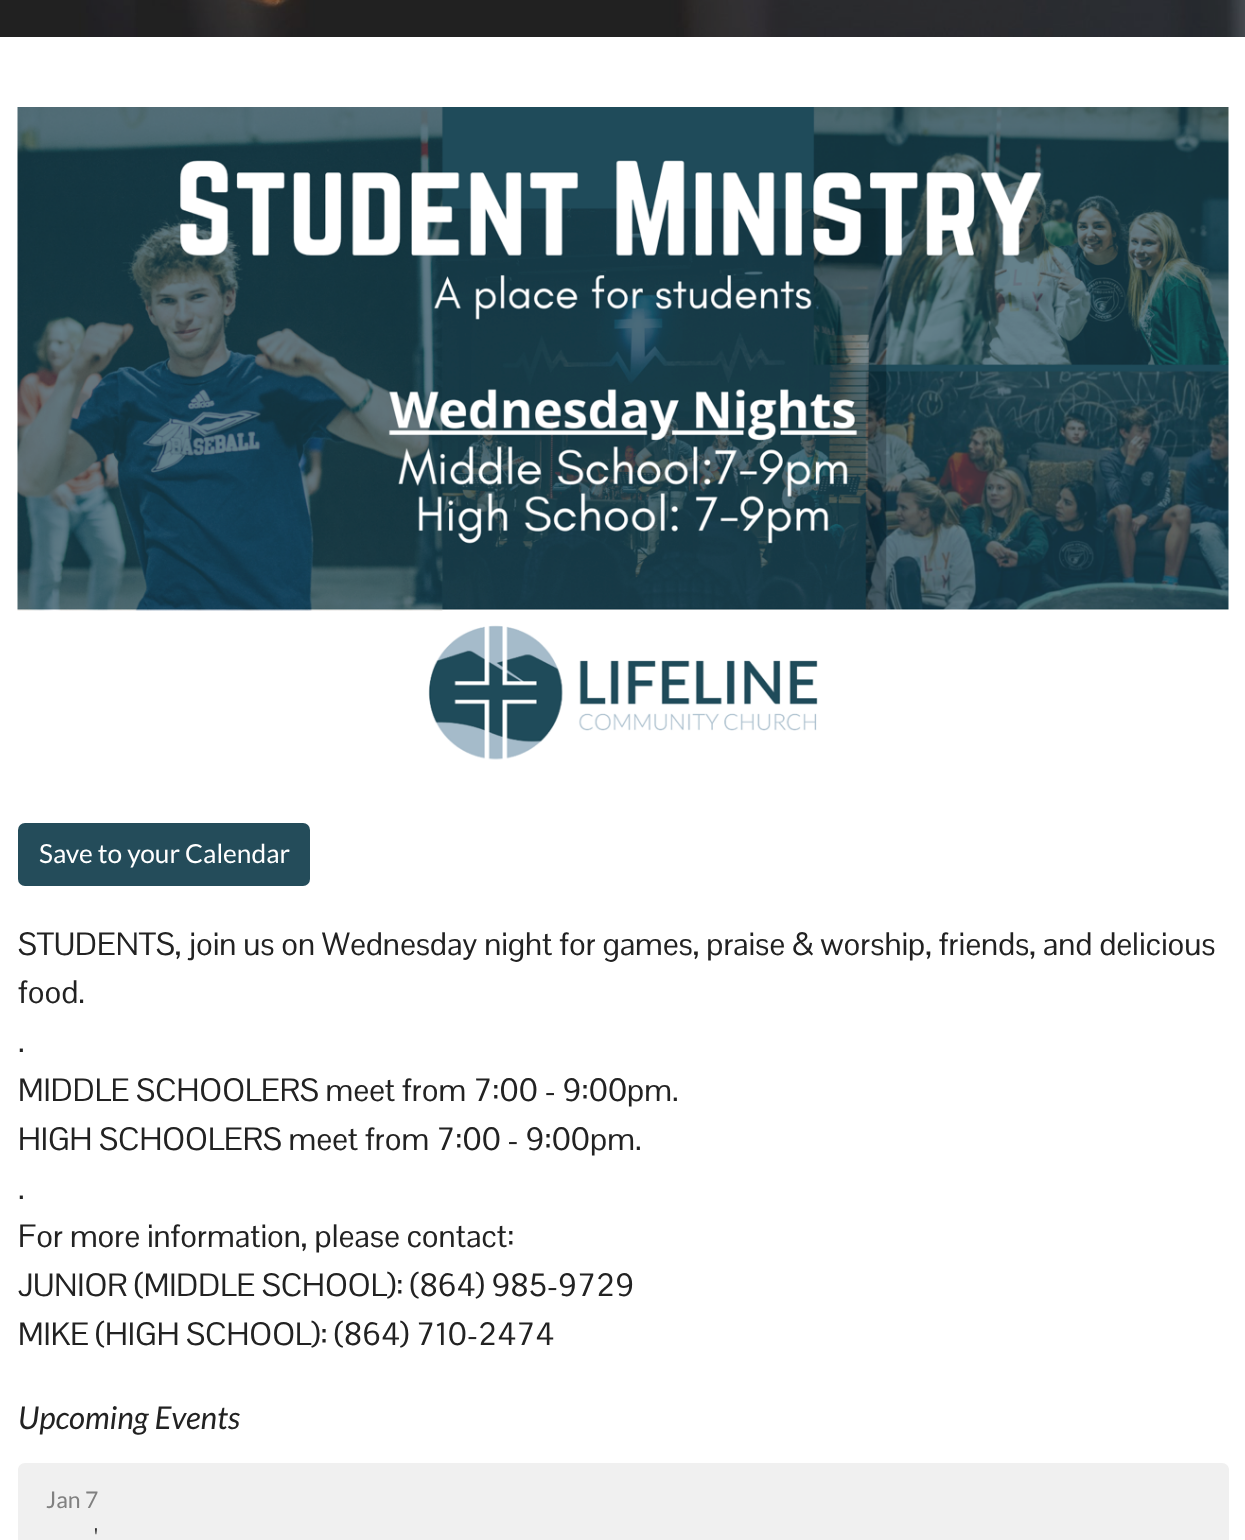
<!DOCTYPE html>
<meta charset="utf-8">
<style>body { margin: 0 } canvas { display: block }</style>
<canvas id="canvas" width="1245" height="1540"></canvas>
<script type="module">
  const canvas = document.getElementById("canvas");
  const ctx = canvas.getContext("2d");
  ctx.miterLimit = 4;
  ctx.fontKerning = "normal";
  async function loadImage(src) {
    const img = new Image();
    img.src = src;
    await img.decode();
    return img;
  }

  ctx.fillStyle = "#ffffff";
  ctx.fillRect(0, 0, 1245, 1540);
  ctx.drawImage(await loadImage("img1.png"), 0, 0, 1245, 37);
  ctx.drawImage(await loadImage("img2.png"), 17, 107, 1212, 653);
  ctx.fillStyle = "#244c5a";
  ctx.beginPath();
  ctx.roundRect(18, 823, 292, 63, 7);
  ctx.fill();
  ctx.font = "26.25px Lato";
  ctx.fillStyle = "#ffffff";
  ctx.fillText("Save to your Calendar", 39, 863);
  ctx.font = "31.5px Pontano Sans";
  ctx.fillStyle = "#222222";
  ctx.fillText("STUDENTS, join us on Wednesday night for games, praise & worship, friends, and delicious", 18, 955);
  ctx.fillText("food.", 18, 1003);
  ctx.fillText(".", 18, 1052);
  ctx.fillText("MIDDLE SCHOOLERS meet from 7:00 - 9:00pm.", 18, 1101);
  ctx.fillText("HIGH SCHOOLERS meet from 7:00 - 9:00pm.", 18, 1150);
  ctx.fillText(".", 18, 1199);
  ctx.fillText("For more information, please contact:", 18, 1247);
  ctx.fillText("JUNIOR (MIDDLE SCHOOL): (864) 985-9729", 18, 1296);
  ctx.fillText("MIKE (HIGH SCHOOL): (864) 710-2474", 18, 1345);
  ctx.font = "italic 31.5px Lato";
  ctx.fillText("Upcoming Events", 18, 1429);
  ctx.fillStyle = "#f0f0f0";
  ctx.beginPath();
  ctx.moveTo(25, 1463);
  ctx.lineTo(1222, 1463);
  ctx.bezierCurveTo(1226, 1463, 1229, 1466, 1229, 1470);
  ctx.lineTo(1229, 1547);
  ctx.lineTo(18, 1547);
  ctx.lineTo(18, 1470);
  ctx.bezierCurveTo(18, 1466, 21, 1463, 25, 1463);
  ctx.closePath();
  ctx.fill();
  ctx.font = "23px Lato";
  ctx.fillStyle = "#808080";
  ctx.fillText("Jan 7", 46, 1508);
  ctx.font = "26.25px Pontano Sans";
  ctx.fillStyle = "#222222";
  ctx.fillText("'", 94, 1547);
</script>
